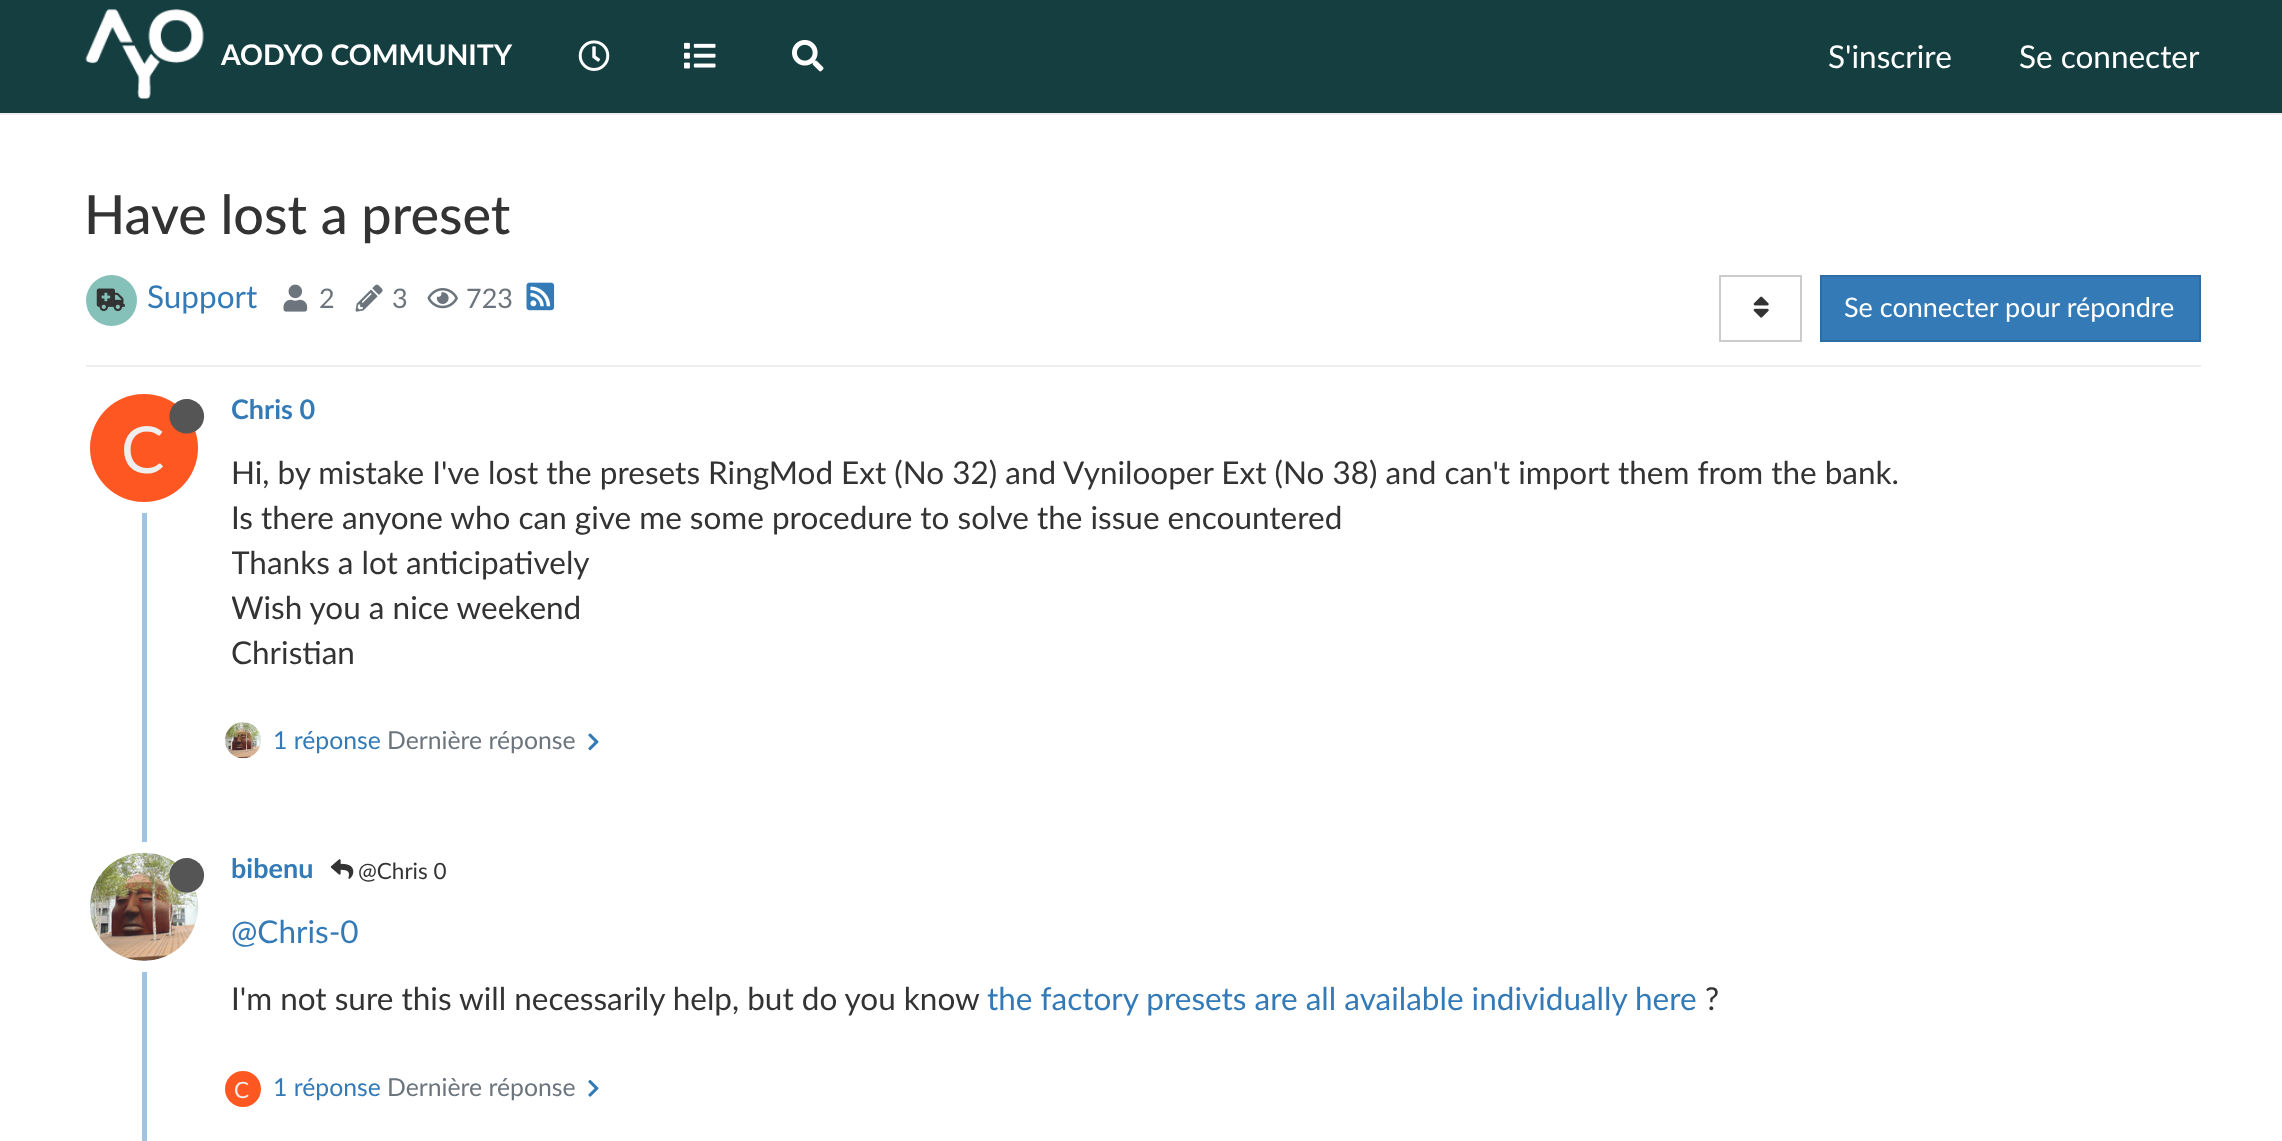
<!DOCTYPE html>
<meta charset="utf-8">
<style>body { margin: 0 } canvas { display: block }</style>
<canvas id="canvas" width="2282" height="1141"></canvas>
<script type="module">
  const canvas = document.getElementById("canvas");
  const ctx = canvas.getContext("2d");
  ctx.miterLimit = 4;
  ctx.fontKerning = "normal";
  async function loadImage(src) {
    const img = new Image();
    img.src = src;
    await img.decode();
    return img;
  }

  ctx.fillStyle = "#ffffff";
  ctx.fillRect(0, 0, 2282, 1141);
  ctx.fillStyle = "#153e40";
  ctx.fillRect(0, 0, 2282, 113);
  ctx.fillStyle = "#eeeeee";
  ctx.fillRect(0, 113, 2282, 2);
  ctx.drawImage(await loadImage("img1.png"), 85, 9, 119, 90);
  ctx.font = "bold 28.4px Lato";
  ctx.fillStyle = "#ffffff";
  ctx.fillText("AODYO COMMUNITY", 221, 65);
  ctx.drawImage(await loadImage("img2.png"), 578, 40, 32, 31);
  ctx.drawImage(await loadImage("img3.png"), 684, 42, 32, 27);
  ctx.drawImage(await loadImage("img4.png"), 792, 39, 32, 33);
  ctx.font = "31.5px Lato";
  ctx.fillText("S'inscrire", 1828, 68);
  ctx.fillText("Se connecter", 2019, 68);
  ctx.font = "500 54px Lato";
  ctx.fillStyle = "#333333";
  ctx.fillText("Have lost a preset", 84, 234);
  ctx.fillStyle = "#eeeeee";
  ctx.fillRect(86, 365, 2115, 2);
  ctx.fillStyle = "#86c1b9";
  ctx.beginPath();
  ctx.arc(111.5, 300.5, 25.5, 0, Math.PI * 2);
  ctx.fill();
  ctx.drawImage(await loadImage("img5.png"), 96, 288, 29, 24);
  ctx.font = "31.5px Lato";
  ctx.fillStyle = "#337ab7";
  ctx.fillText("Support", 147, 308);
  ctx.drawImage(await loadImage("img6.png"), 283, 284, 25, 28);
  ctx.font = "27px Lato";
  ctx.fillStyle = "#6c757d";
  ctx.fillText("2", 319, 308);
  ctx.drawImage(await loadImage("img7.png"), 355, 284, 28, 28);
  ctx.fillText("3", 392, 308);
  ctx.drawImage(await loadImage("img8.png"), 427, 288, 31, 21);
  ctx.fillText("723", 466, 308);
  ctx.drawImage(await loadImage("img9.png"), 526, 282, 29, 29);
  ctx.strokeStyle = "#cccccc";
  ctx.lineWidth = 2;
  ctx.strokeRect(1720, 276, 81, 65);
  ctx.drawImage(await loadImage("img10.png"), 1753, 296, 16, 22);
  ctx.fillStyle = "#337ab7";
  ctx.beginPath();
  ctx.rect(1821, 276, 379, 65);
  ctx.fill();
  ctx.strokeStyle = "#2e6da4";
  ctx.stroke();
  ctx.fillStyle = "#ffffff";
  ctx.fillText("Se connecter pour répondre", 1844, 317);
  ctx.fillStyle = "#a0c4e4";
  ctx.fillRect(142, 389, 5, 752);
  ctx.font = "bold 27px Lato";
  ctx.fillStyle = "#337ab7";
  ctx.fillText("Chris 0", 231, 419);
  ctx.beginPath();
  ctx.arc(144, 448, 59.5, 0, Math.PI * 2);
  ctx.strokeStyle = "#ffffff";
  ctx.lineWidth = 11;
  ctx.stroke();
  ctx.fillStyle = "#ff5722";
  ctx.beginPath();
  ctx.arc(144, 448, 54, 0, Math.PI * 2);
  ctx.fill();
  ctx.fillStyle = "#555555";
  ctx.beginPath();
  ctx.moveTo(174.5, 404);
  ctx.bezierCurveTo(186, 392.5, 205.5, 402, 204, 418);
  ctx.bezierCurveTo(203.5, 422, 202, 425.5, 199, 428.5);
  ctx.bezierCurveTo(187.5, 440, 168, 430.5, 169.5, 414.5);
  ctx.bezierCurveTo(170, 410.5, 171.5, 407, 174.5, 404);
  ctx.closePath();
  ctx.fill();
  ctx.font = "65px Lato";
  ctx.fillStyle = "#eeeeee";
  ctx.fillText("C", 121, 473);
  ctx.font = "31.5px Lato";
  ctx.fillStyle = "#333333";
  ctx.fillText("Hi, by mistake I've lost the presets RingMod Ext (No 32) and Vynilooper Ext (No 38) and can't import them from the bank.", 231, 484);
  ctx.fillText("Is there anyone who can give me some procedure to solve the issue encountered", 231, 529);
  ctx.save();
  ctx.beginPath();
  ctx.rect(232, 450, 1969, 250);
  ctx.clip();
  ctx.fillText("Thanks a lot anticipatively", 231, 574);
  ctx.fillText("Wish you a nice weekend", 231, 619);
  ctx.restore();
  ctx.fillText("Christian", 231, 664);
  ctx.drawImage(await loadImage("img11.png"), 225, 722, 36, 37);
  ctx.font = "24.75px Lato";
  ctx.fillStyle = "#337ab7";
  ctx.fillText("1 réponse", 273, 749);
  ctx.fillStyle = "#6c757d";
  ctx.fillText("Dernière réponse", 387, 749);
  ctx.drawImage(await loadImage("img12.png"), 588, 733, 11, 18);
  ctx.beginPath();
  ctx.arc(144, 907, 59.5, 0, Math.PI * 2);
  ctx.stroke();
  ctx.drawImage(await loadImage("img13.png"), 90, 852, 108, 109);
  ctx.fillStyle = "#555555";
  ctx.beginPath();
  ctx.moveTo(174.5, 863);
  ctx.bezierCurveTo(186, 851.5, 205.5, 861, 204, 877);
  ctx.bezierCurveTo(203.5, 881, 202, 884.5, 199, 887.5);
  ctx.bezierCurveTo(196, 890.5, 192.5, 892, 188.5, 892.5);
  ctx.bezierCurveTo(172.5, 894, 163, 874.5, 174.5, 863);
  ctx.closePath();
  ctx.fill();
  ctx.font = "bold 27px Lato";
  ctx.fillStyle = "#337ab7";
  ctx.fillText("bibenu", 231, 878);
  ctx.drawImage(await loadImage("img14.png"), 330, 859, 24, 20);
  ctx.font = "22.5px Lato";
  ctx.fillStyle = "#333333";
  ctx.fillText("@Chris 0", 358, 879);
  ctx.font = "31.5px Lato";
  ctx.fillStyle = "#337ab7";
  ctx.fillText("@Chris-0", 231, 943);
  ctx.fillStyle = "#333333";
  ctx.fillText("I'm not sure this will necessarily help, but do you know", 231, 1010);
  ctx.fillStyle = "#337ab7";
  ctx.fillText("the factory presets are all available individually here", 987, 1010);
  ctx.fillStyle = "#333333";
  ctx.fillText("?", 1705, 1010);
  ctx.fillStyle = "#ff5722";
  ctx.beginPath();
  ctx.arc(243, 1089, 18, 0, Math.PI * 2);
  ctx.fill();
  ctx.font = "22.5px Lato";
  ctx.fillStyle = "#eeeeee";
  ctx.fillText("C", 234, 1098);
  ctx.font = "24.75px Lato";
  ctx.fillStyle = "#337ab7";
  ctx.fillText("1 réponse", 273, 1096);
  ctx.fillStyle = "#6c757d";
  ctx.fillText("Dernière réponse", 387, 1096);
  ctx.drawImage(await loadImage("img15.png"), 588, 1080, 11, 17);
</script>
